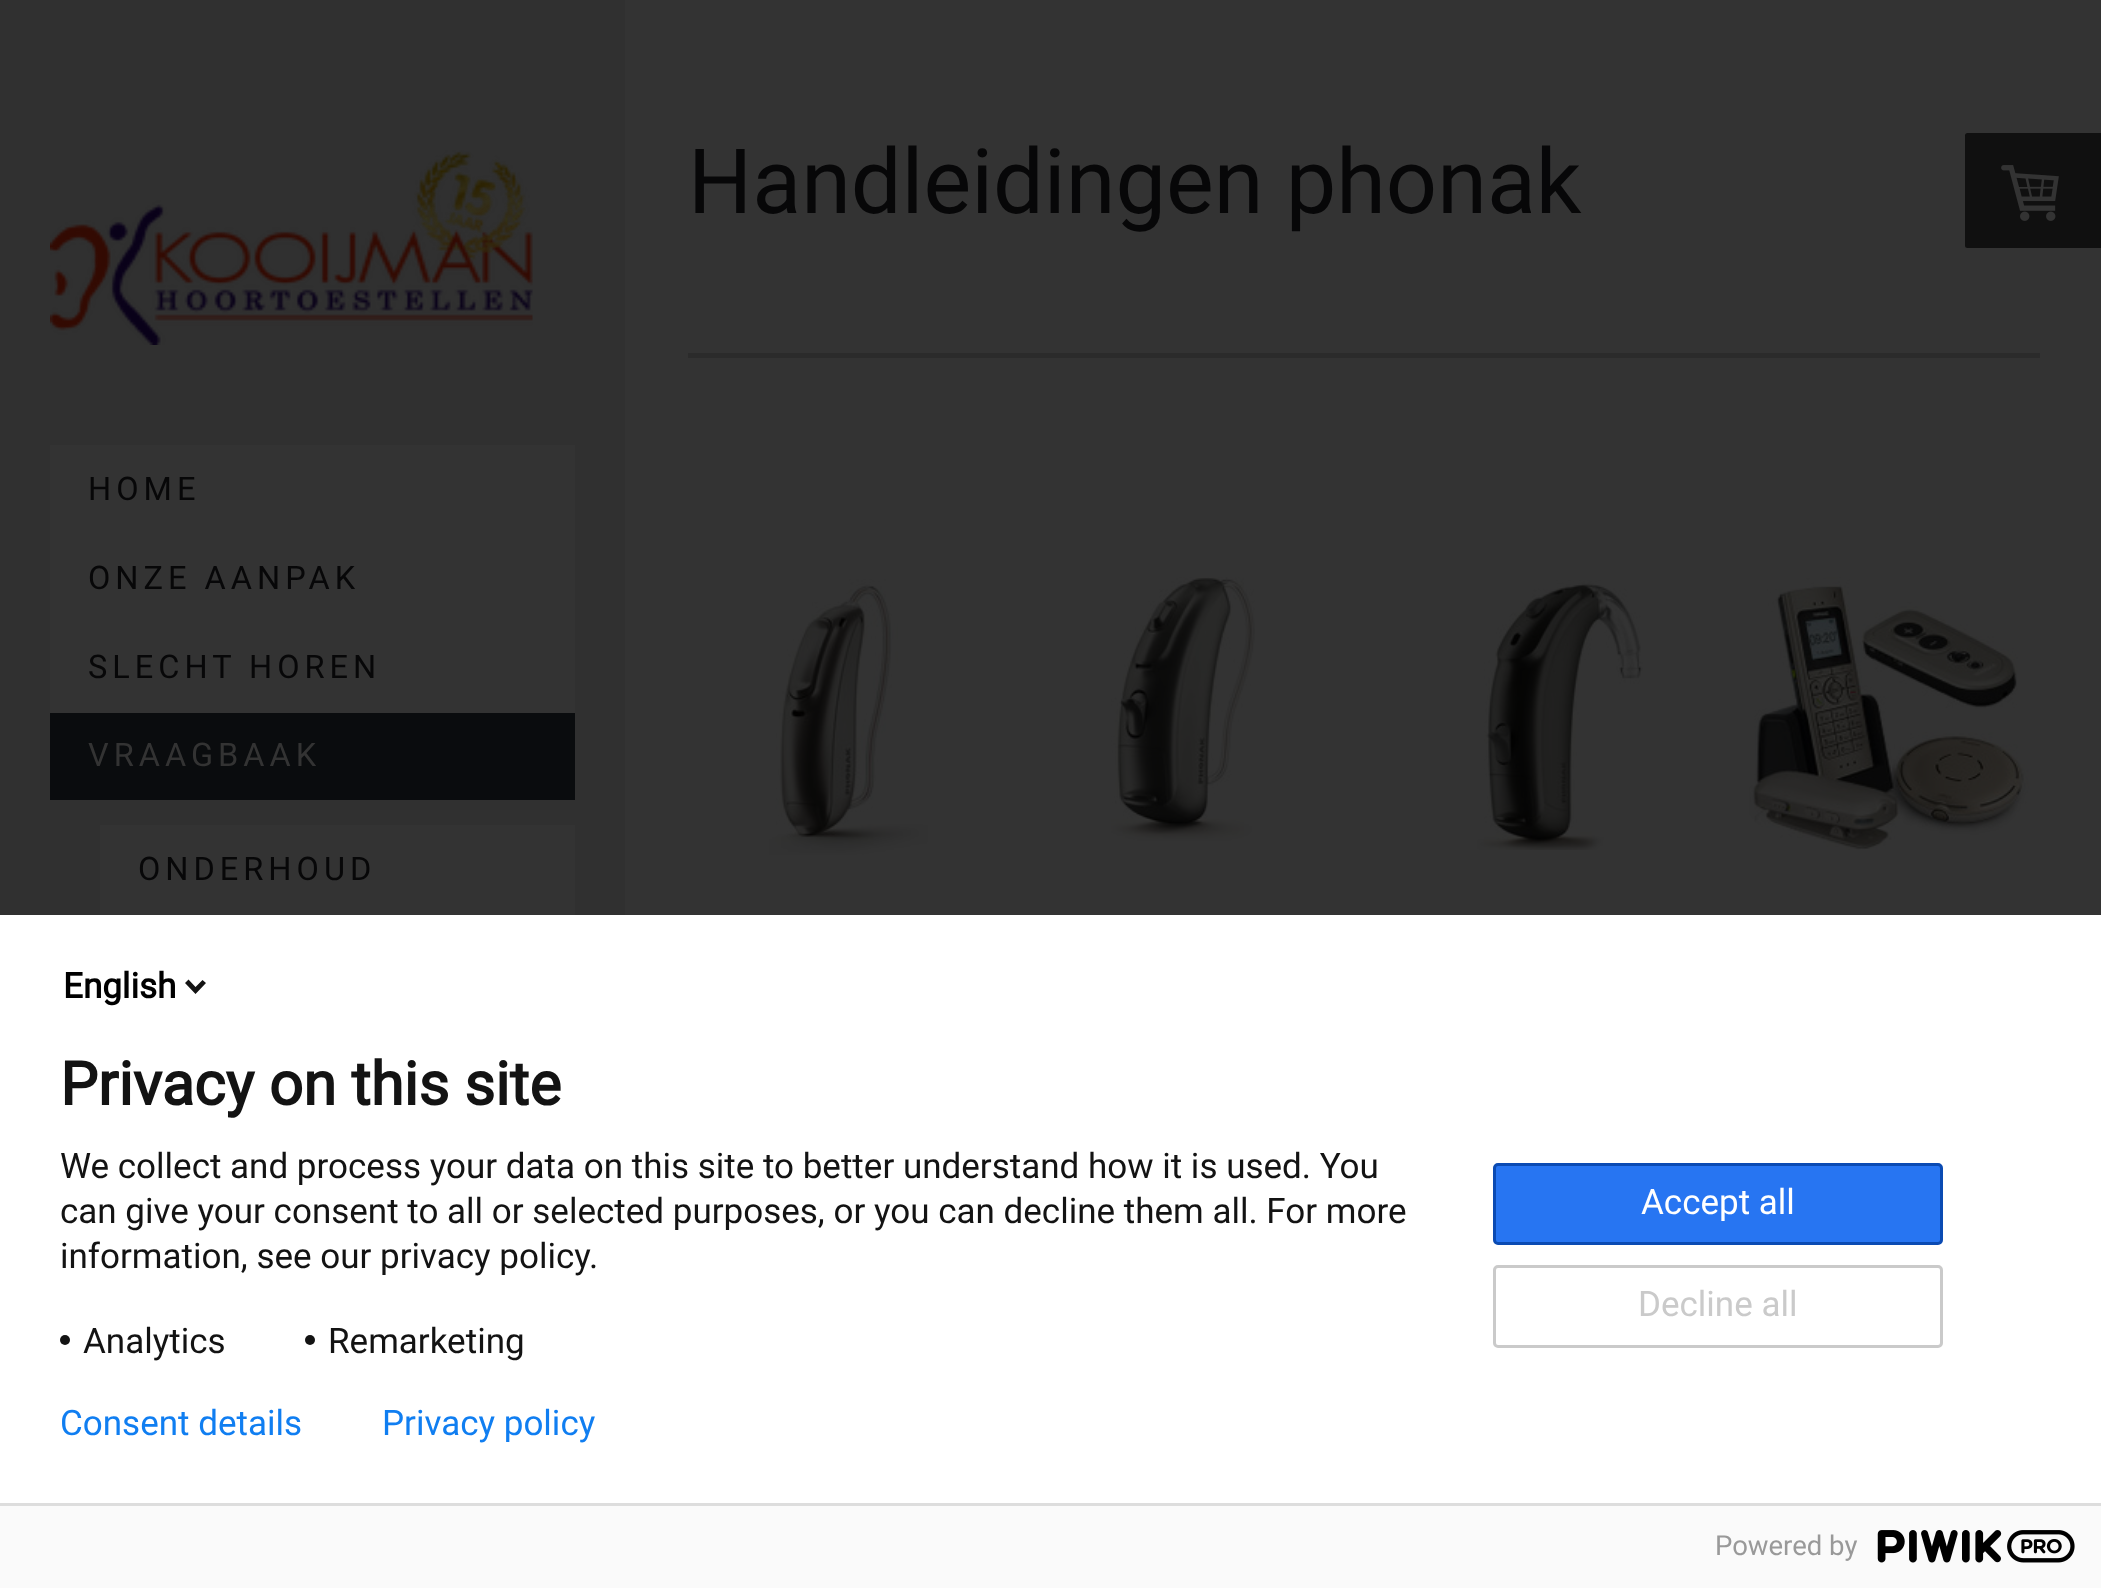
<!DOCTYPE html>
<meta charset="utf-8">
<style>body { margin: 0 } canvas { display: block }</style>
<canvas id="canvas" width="2101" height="1588"></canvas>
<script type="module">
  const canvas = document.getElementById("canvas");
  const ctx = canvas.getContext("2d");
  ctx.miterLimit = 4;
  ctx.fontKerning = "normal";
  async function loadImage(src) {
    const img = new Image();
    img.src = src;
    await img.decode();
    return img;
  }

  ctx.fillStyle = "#333333";
  ctx.fillRect(0, 0, 2101, 1588);
  ctx.font = "90px Roboto";
  ctx.fillStyle = "#070708";
  ctx.fillText("Handleidingen phonak", 688, 213);
  ctx.fillStyle = "#2b2b2b";
  ctx.fillRect(688, 353, 1352, 5);
  ctx.drawImage(await loadImage("img1.png"), 769, 579, 159, 276);
  ctx.drawImage(await loadImage("img2.png"), 1111, 577, 144, 264);
  ctx.drawImage(await loadImage("img3.png"), 1477, 580, 166, 270);
  ctx.drawImage(await loadImage("img4.png"), 1749, 577, 280, 273);
  ctx.fillStyle = "#101010";
  ctx.beginPath();
  ctx.roundRect(1965, 133, 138, 115, 2.5);
  ctx.fill();
  ctx.drawImage(await loadImage("img5.png"), 2001, 165, 58, 56);
  ctx.fillStyle = "#303030";
  ctx.fillRect(0, 0, 625, 915);
  ctx.drawImage(await loadImage("img6.png"), 50, 150, 483, 195);
  ctx.fillStyle = "#333333";
  ctx.fillRect(50, 445, 525, 268);
  ctx.letterSpacing = "5px";
  ctx.font = "32.5px Roboto";
  ctx.fillStyle = "#070708";
  ctx.fillText("HOME", 88, 500);
  ctx.fillText("ONZE AANPAK", 88, 589);
  ctx.fillText("SLECHT HOREN", 88, 678);
  ctx.fillStyle = "#0a0c0e";
  ctx.fillRect(50, 713, 525, 87);
  ctx.fillStyle = "#333333";
  ctx.fillText("VRAAGBAAK", 88, 766);
  ctx.fillRect(100, 825, 475, 90);
  ctx.fillStyle = "#070708";
  ctx.fillText("ONDERHOUD", 138, 880);
  ctx.fillStyle = "#ffffff";
  ctx.fillRect(0, 915, 2101, 588);
  ctx.letterSpacing = "0px";
  ctx.font = "bold 35px Roboto";
  ctx.fillStyle = "#000000";
  ctx.fillText("English", 63, 998);
  ctx.fillStyle = "#131313";
  ctx.beginPath();
  ctx.moveTo(195.5, 987);
  ctx.lineTo(202.5, 980);
  ctx.lineTo(206, 983);
  ctx.lineTo(195.5, 994);
  ctx.lineTo(185, 983);
  ctx.lineTo(188.5, 979.5);
  ctx.closePath();
  ctx.fill();
  ctx.font = "bold 60px Roboto";
  ctx.fillText("Privacy on this site", 60, 1105);
  ctx.font = "35px Roboto";
  ctx.fillText("We collect and process your data on this site to better understand how it is used. You", 60, 1178);
  ctx.fillText("can give your consent to all or selected purposes, or you can decline them all. For more", 60, 1223);
  ctx.fillText("information, see our privacy policy.", 60, 1268);
  ctx.beginPath();
  ctx.arc(65, 1340, 5, 0, Math.PI * 2);
  ctx.fill();
  ctx.fillText("Analytics", 83, 1353);
  ctx.beginPath();
  ctx.arc(310, 1340, 5, 0, Math.PI * 2);
  ctx.fill();
  ctx.fillText("Remarketing", 328, 1353);
  ctx.fillStyle = "#2775f2";
  ctx.beginPath();
  ctx.roundRect(1494.5, 1164.5, 447, 79, 3.5);
  ctx.fill();
  ctx.strokeStyle = "#0b4bb3";
  ctx.lineWidth = 3;
  ctx.stroke();
  ctx.fillStyle = "#ffffff";
  ctx.fillText("Accept all", 1641, 1214);
  ctx.beginPath();
  ctx.roundRect(1494.5, 1266.5, 447, 80, 3.5);
  ctx.strokeStyle = "#cacaca";
  ctx.stroke();
  ctx.fillStyle = "#cacaca";
  ctx.fillText("Decline all", 1638, 1316);
  ctx.fillStyle = "#107ef1";
  ctx.fillText("Consent details", 60, 1435);
  ctx.fillText("Privacy policy", 382, 1435);
  ctx.fillStyle = "#fafafa";
  ctx.fillRect(0, 1506, 2101, 82);
  ctx.fillStyle = "#dddddd";
  ctx.fillRect(0, 1503, 2101, 3);
  ctx.font = "27.5px Roboto";
  ctx.fillStyle = "#999999";
  ctx.fillText("Powered by", 1715, 1555);
  ctx.drawImage(await loadImage("img7.png"), 1877, 1530, 198, 33);
</script>
